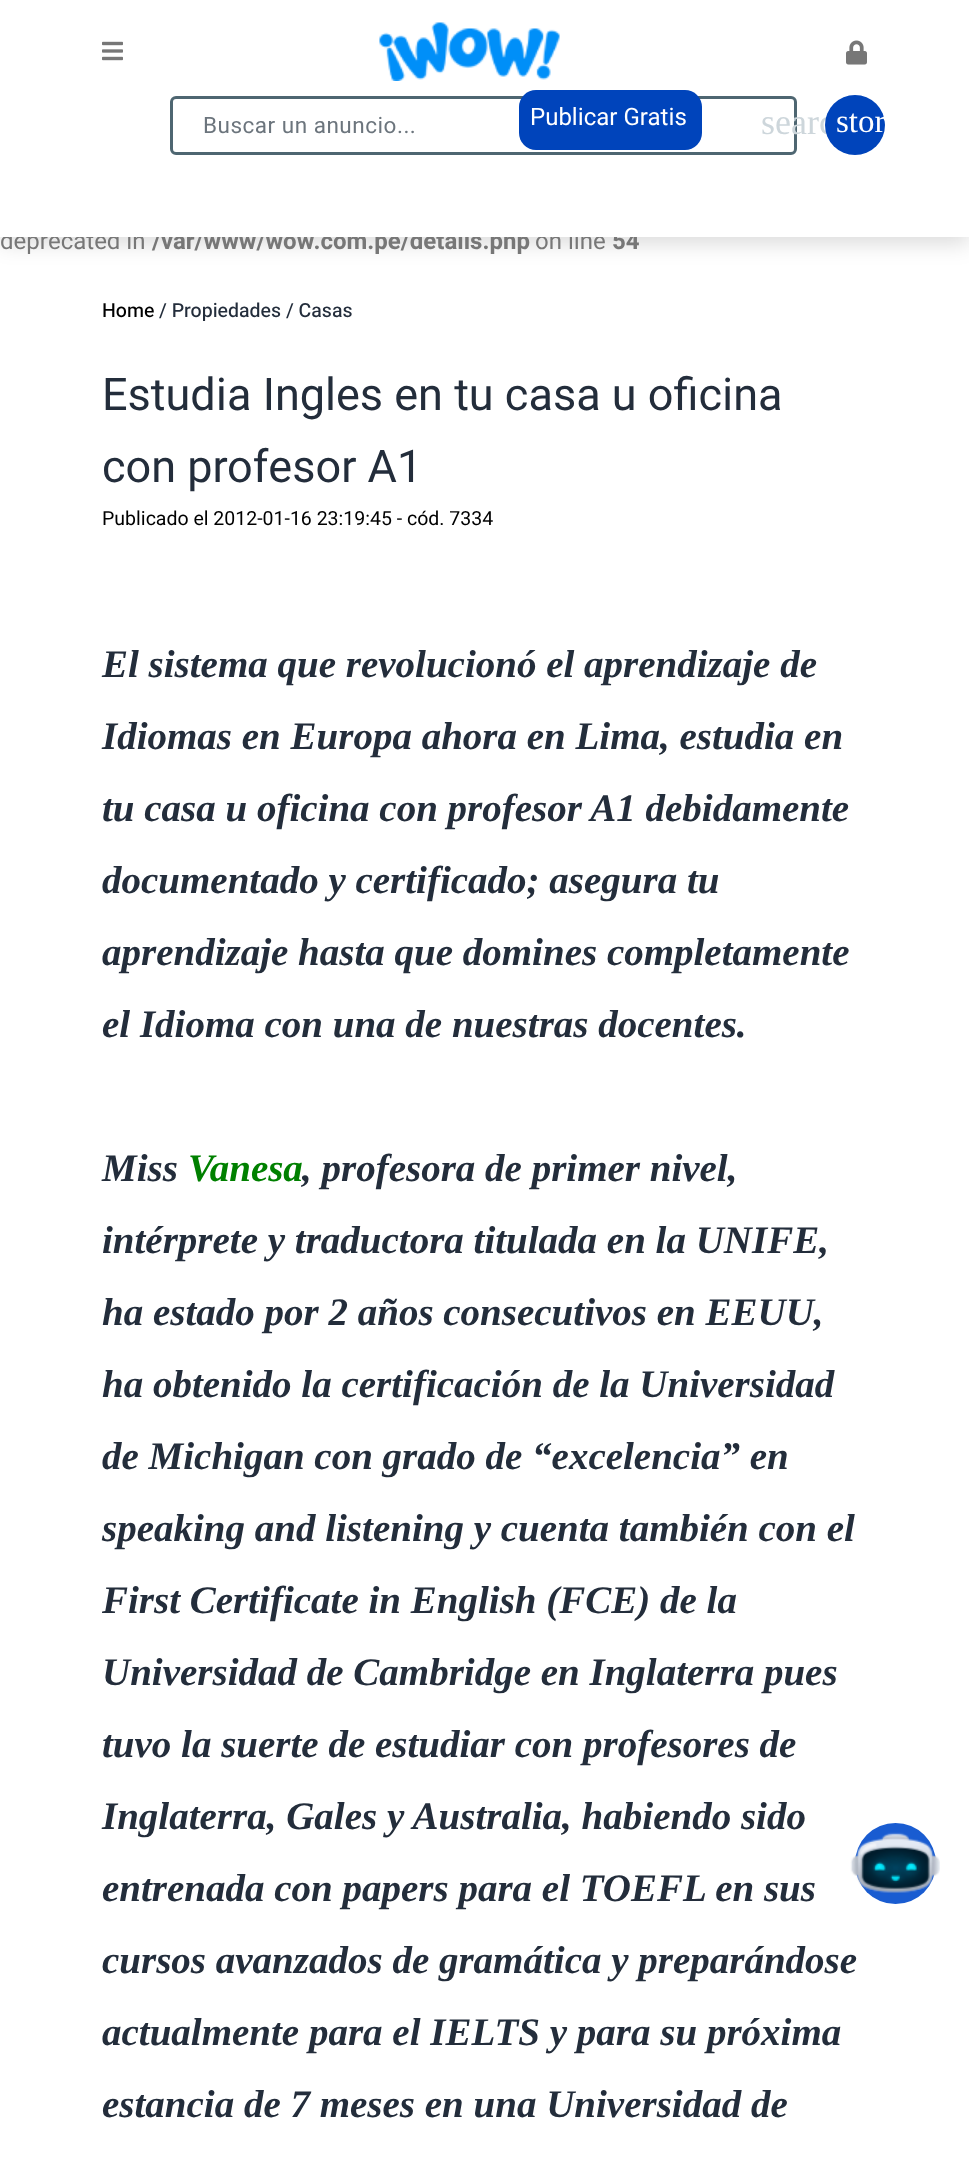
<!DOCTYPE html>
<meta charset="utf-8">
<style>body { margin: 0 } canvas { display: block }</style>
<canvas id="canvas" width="969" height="2173"></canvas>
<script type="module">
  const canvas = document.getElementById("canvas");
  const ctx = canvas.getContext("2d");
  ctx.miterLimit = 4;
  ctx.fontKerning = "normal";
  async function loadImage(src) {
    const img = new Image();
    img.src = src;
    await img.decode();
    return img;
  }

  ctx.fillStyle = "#ffffff";
  ctx.fillRect(0, 0, 969, 2173);
  ctx.fillStyle = "rgba(0, 0, 0, 0.15)";
  ctx.filter = "blur(11px)";
  ctx.beginPath();
  ctx.rect(0, 6, 969, 237);
  ctx.fill();
  ctx.filter = "none";
  ctx.font = "24px Heebo";
  ctx.fillStyle = "#777777";
  ctx.fillText("deprecated in", 0, 249);
  ctx.font = "bold 24px Heebo";
  ctx.fillText("/var/www/wow.com.pe/details.php", 152, 249);
  ctx.font = "24px Heebo";
  ctx.fillText("on line", 535, 249);
  ctx.font = "bold 24px Heebo";
  ctx.fillText("54", 612, 249);
  ctx.fillStyle = "#ffffff";
  ctx.fillRect(0, 0, 969, 237);
  ctx.drawImage(await loadImage("img1.png"), 102, 41, 21, 20);
  ctx.drawImage(await loadImage("img2.png"), 379, 22, 181, 59);
  ctx.drawImage(await loadImage("img3.png"), 846, 40, 21, 25);
  ctx.beginPath();
  ctx.roundRect(171.5, 97.5, 624, 56, 4.5);
  ctx.strokeStyle = "#4e6671";
  ctx.lineWidth = 3;
  ctx.stroke();
  ctx.fillStyle = "#0044bb";
  ctx.beginPath();
  ctx.roundRect(519, 90, 183, 60, 17);
  ctx.fill();
  ctx.font = "24px Heebo";
  ctx.fillStyle = "#ffffff";
  ctx.fillText("Publicar Gratis", 530, 125);
  ctx.font = "36px Liberation Serif";
  ctx.fillStyle = "#cdd6db";
  ctx.fillText("searc", 761, 134);
  ctx.fillStyle = "#0044bb";
  ctx.beginPath();
  ctx.arc(855, 125, 30, 0, Math.PI * 2);
  ctx.fill();
  ctx.font = "33px Liberation Serif";
  ctx.fillStyle = "#ffffff";
  ctx.fillText("stor", 836, 132);
  ctx.letterSpacing = "0.5px";
  ctx.font = "22.5px Heebo";
  ctx.fillStyle = "#6c757d";
  ctx.fillText("Buscar un anuncio...", 203, 133);
  ctx.letterSpacing = "0px";
  ctx.font = "500 19.5px Heebo";
  ctx.fillStyle = "#000000";
  ctx.fillText("Home", 102, 317);
  ctx.fillStyle = "#232d3b";
  ctx.fillText("/ Propiedades / Casas", 159, 317);
  ctx.font = "45px Heebo";
  ctx.fillText("Estudia Ingles en tu casa u oficina", 102, 410);
  ctx.fillText("con profesor A1", 102, 482);
  ctx.font = "19.5px Heebo";
  ctx.fillStyle = "#000000";
  ctx.fillText("Publicado el 2012-01-16 23:19:45 - cód. 7334", 102, 525);
  ctx.font = "italic bold 39px Liberation Serif";
  ctx.fillStyle = "#232d3b";
  ctx.fillText("El sistema que revolucionó el aprendizaje de", 102, 677);
  ctx.fillText("Idiomas en Europa ahora en Lima, estudia en", 102, 749);
  ctx.fillText("tu casa u oficina con profesor A1 debidamente", 102, 821);
  ctx.fillText("documentado y certificado; asegura tu", 102, 893);
  ctx.fillText("aprendizaje hasta que domines completamente", 102, 965);
  ctx.fillText("el Idioma con una de nuestras docentes.", 102, 1037);
  ctx.fillText("Miss", 102, 1181);
  ctx.fillStyle = "#008000";
  ctx.fillText("Vanesa", 188, 1181);
  ctx.fillStyle = "#232d3b";
  ctx.fillText(", profesora de primer nivel,", 302, 1181);
  ctx.fillText("intérprete y traductora titulada en la UNIFE,", 102, 1253);
  ctx.fillText("ha estado por 2 años consecutivos en EEUU,", 102, 1325);
  ctx.fillText("ha obtenido la certificación de la Universidad", 102, 1397);
  ctx.fillText("de Michigan con grado de “excelencia” en", 102, 1469);
  ctx.fillText("speaking and listening y cuenta también con el", 102, 1541);
  ctx.fillText("First Certificate in English (FCE) de la", 102, 1613);
  ctx.fillText("Universidad de Cambridge en Inglaterra pues", 102, 1685);
  ctx.fillText("tuvo la suerte de estudiar con profesores de", 102, 1757);
  ctx.fillText("Inglaterra, Gales y Australia, habiendo sido", 102, 1829);
  ctx.fillText("entrenada con papers para el TOEFL en sus", 102, 1901);
  ctx.fillText("cursos avanzados de gramática y preparándose", 102, 1973);
  ctx.fillText("actualmente para el IELTS y para su próxima", 102, 2045);
  ctx.fillText("estancia de 7 meses en una Universidad de", 102, 2117);
  ctx.fillStyle = "#195cd1";
  ctx.beginPath();
  ctx.arc(895.5, 1863.5, 40.5, 0, Math.PI * 2);
  ctx.fill();
  ctx.drawImage(await loadImage("img4.png"), 850, 1832, 90, 61);
</script>
